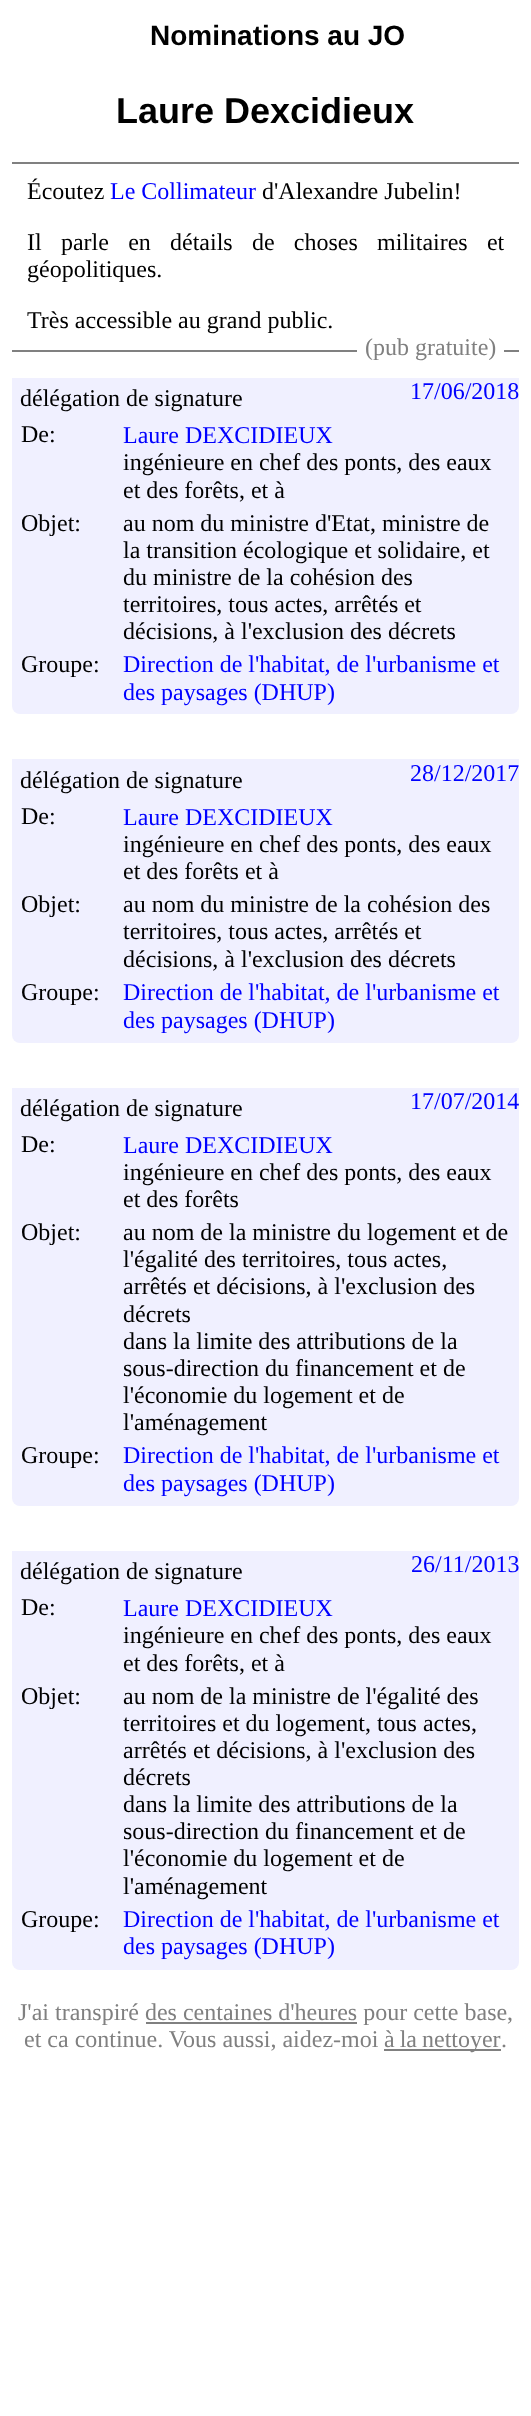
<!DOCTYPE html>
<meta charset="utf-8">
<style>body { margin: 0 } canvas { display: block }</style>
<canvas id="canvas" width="531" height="2416"></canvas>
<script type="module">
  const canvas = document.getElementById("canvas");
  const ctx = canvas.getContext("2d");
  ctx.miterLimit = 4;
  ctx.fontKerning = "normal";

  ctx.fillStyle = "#ffffff";
  ctx.fillRect(0, 0, 531, 2416);
  ctx.font = "bold 28px Liberation Sans";
  ctx.fillStyle = "#000000";
  ctx.fillText("Nominations au JO", 150, 45);
  ctx.font = "bold 36px Liberation Sans";
  ctx.fillText("Laure Dexcidieux", 116, 123);
  ctx.fillStyle = "#808080";
  ctx.fillRect(12, 162, 507, 2);
  ctx.fillRect(12, 350, 507, 2);
  ctx.font = "24px Liberation Serif";
  ctx.fillStyle = "#000000";
  ctx.fillText("Écoutez", 27, 199);
  ctx.fillStyle = "#0000ff";
  ctx.fillText("Le Collimateur", 110, 199);
  ctx.fillStyle = "#000000";
  ctx.fillText("d'Alexandre Jubelin!", 262, 199);
  ctx.wordSpacing = "13.25px";
  ctx.fillText("Il parle en détails de choses militaires et", 27, 250);
  ctx.wordSpacing = "0px";
  ctx.fillText("géopolitiques.", 27, 277);
  ctx.fillText("Très accessible au grand public.", 27, 328);
  ctx.fillStyle = "#ffffff";
  ctx.fillRect(357, 350, 147, 2);
  ctx.fillStyle = "#808080";
  ctx.fillText("(pub gratuite)", 365, 355);
  ctx.fillStyle = "#f0f0ff";
  ctx.beginPath();
  ctx.roundRect(12, 378, 507, 336, [0, 0, 8, 8]);
  ctx.fill();
  ctx.fillStyle = "#000000";
  ctx.fillText("délégation de signature", 20, 406);
  ctx.fillStyle = "#0000ff";
  ctx.fillText("17/06/2018", 410, 399);
  ctx.fillStyle = "#000000";
  ctx.fillText("De:", 21, 442);
  ctx.fillStyle = "#0000ff";
  ctx.fillText("Laure DEXCIDIEUX", 123, 443);
  ctx.fillStyle = "#000000";
  ctx.fillText("ingénieure en chef des ponts, des eaux", 123, 470);
  ctx.fillText("et des forêts, et à", 123, 498);
  ctx.fillText("Objet:", 21, 531);
  ctx.fillText("au nom du ministre d'Etat, ministre de", 123, 531);
  ctx.fillText("la transition écologique et solidaire, et", 123, 558);
  ctx.fillText("du ministre de la cohésion des", 123, 585);
  ctx.fillText("territoires, tous actes, arrêtés et", 123, 612);
  ctx.fillText("décisions, à l'exclusion des décrets", 123, 639);
  ctx.fillText("Groupe:", 21, 672);
  ctx.fillStyle = "#0000ff";
  ctx.fillText("Direction de l'habitat, de l'urbanisme et", 123, 672);
  ctx.fillText("des paysages (DHUP)", 123, 700);
  ctx.fillStyle = "#f0f0ff";
  ctx.beginPath();
  ctx.roundRect(12, 759, 507, 284, [0, 0, 8, 8]);
  ctx.fill();
  ctx.fillStyle = "#000000";
  ctx.fillText("délégation de signature", 20, 788);
  ctx.fillStyle = "#0000ff";
  ctx.fillText("28/12/2017", 410, 781);
  ctx.fillStyle = "#000000";
  ctx.fillText("De:", 21, 824);
  ctx.fillStyle = "#0000ff";
  ctx.fillText("Laure DEXCIDIEUX", 123, 825);
  ctx.fillStyle = "#000000";
  ctx.fillText("ingénieure en chef des ponts, des eaux", 123, 852);
  ctx.fillText("et des forêts et à", 123, 879);
  ctx.fillText("Objet:", 21, 912);
  ctx.fillText("au nom du ministre de la cohésion des", 123, 912);
  ctx.fillText("territoires, tous actes, arrêtés et", 123, 939);
  ctx.fillText("décisions, à l'exclusion des décrets", 123, 967);
  ctx.fillText("Groupe:", 21, 1000);
  ctx.fillStyle = "#0000ff";
  ctx.fillText("Direction de l'habitat, de l'urbanisme et", 123, 1000);
  ctx.fillText("des paysages (DHUP)", 123, 1028);
  ctx.fillStyle = "#f0f0ff";
  ctx.beginPath();
  ctx.roundRect(12, 1088, 507, 418, [0, 0, 8, 8]);
  ctx.fill();
  ctx.fillStyle = "#000000";
  ctx.fillText("délégation de signature", 20, 1116);
  ctx.fillStyle = "#0000ff";
  ctx.fillText("17/07/2014", 410, 1109);
  ctx.fillStyle = "#000000";
  ctx.fillText("De:", 21, 1152);
  ctx.fillStyle = "#0000ff";
  ctx.fillText("Laure DEXCIDIEUX", 123, 1153);
  ctx.fillStyle = "#000000";
  ctx.fillText("ingénieure en chef des ponts, des eaux", 123, 1180);
  ctx.fillText("et des forêts", 123, 1207);
  ctx.fillText("Objet:", 21, 1240);
  ctx.fillText("au nom de la ministre du logement et de", 123, 1240);
  ctx.fillText("l'égalité des territoires, tous actes,", 123, 1267);
  ctx.fillText("arrêtés et décisions, à l'exclusion des", 123, 1294);
  ctx.fillText("décrets", 123, 1322);
  ctx.fillText("dans la limite des attributions de la", 123, 1349);
  ctx.fillText("sous-direction du financement et de", 123, 1376);
  ctx.fillText("l'économie du logement et de", 123, 1403);
  ctx.fillText("l'aménagement", 123, 1430);
  ctx.fillText("Groupe:", 21, 1463);
  ctx.fillStyle = "#0000ff";
  ctx.fillText("Direction de l'habitat, de l'urbanisme et", 123, 1463);
  ctx.fillText("des paysages (DHUP)", 123, 1491);
  ctx.fillStyle = "#f0f0ff";
  ctx.beginPath();
  ctx.roundRect(12, 1551, 507, 419, [0, 0, 8, 8]);
  ctx.fill();
  ctx.fillStyle = "#000000";
  ctx.fillText("délégation de signature", 20, 1579);
  ctx.fillStyle = "#0000ff";
  ctx.fillText("26/11/2013", 411, 1572);
  ctx.fillStyle = "#000000";
  ctx.fillText("De:", 21, 1615);
  ctx.fillStyle = "#0000ff";
  ctx.fillText("Laure DEXCIDIEUX", 123, 1616);
  ctx.fillStyle = "#000000";
  ctx.fillText("ingénieure en chef des ponts, des eaux", 123, 1643);
  ctx.fillText("et des forêts, et à", 123, 1671);
  ctx.fillText("Objet:", 21, 1704);
  ctx.fillText("au nom de la ministre de l'égalité des", 123, 1704);
  ctx.fillText("territoires et du logement, tous actes,", 123, 1731);
  ctx.fillText("arrêtés et décisions, à l'exclusion des", 123, 1758);
  ctx.fillText("décrets", 123, 1785);
  ctx.fillText("dans la limite des attributions de la", 123, 1812);
  ctx.fillText("sous-direction du financement et de", 123, 1839);
  ctx.fillText("l'économie du logement et de", 123, 1866);
  ctx.fillText("l'aménagement", 123, 1894);
  ctx.fillText("Groupe:", 21, 1927);
  ctx.fillStyle = "#0000ff";
  ctx.fillText("Direction de l'habitat, de l'urbanisme et", 123, 1927);
  ctx.fillText("des paysages (DHUP)", 123, 1954);
  ctx.fillStyle = "#808080";
  ctx.fillText("J'ai transpiré des centaines d'heures pour cette base,", 18, 2020);
  ctx.fillRect(146, 2022, 211, 2);
  ctx.fillText("et ca continue. Vous aussi, aidez-moi", 24, 2047);
  ctx.fillRect(384, 2049, 117, 2);
  ctx.wordSpacing = "-1px";
  ctx.fillText("à la nettoyer", 384, 2047);
  ctx.wordSpacing = "0px";
  ctx.fillText(".", 501, 2047);
</script>
